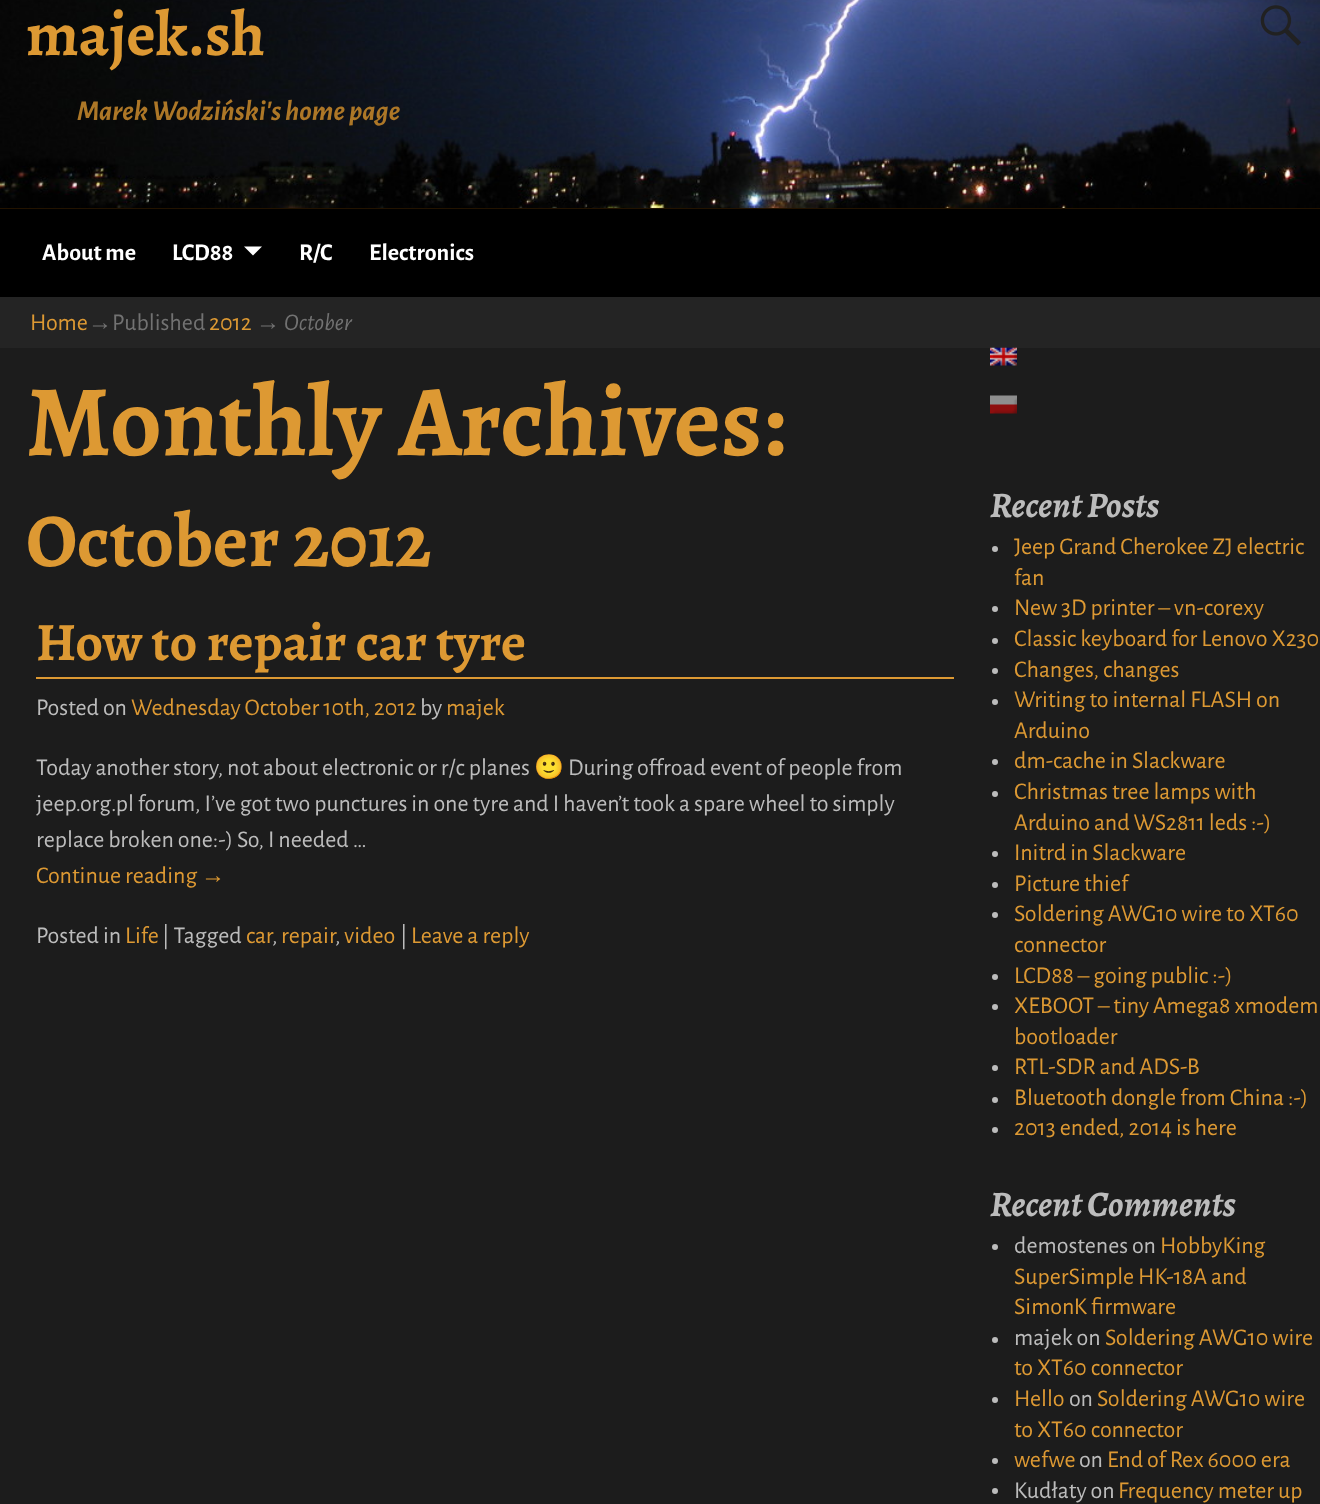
<!DOCTYPE html>
<meta charset="utf-8">
<style>body { margin: 0 } canvas { display: block }</style>
<canvas id="canvas" width="1320" height="1504"></canvas>
<script type="module">
  const canvas = document.getElementById("canvas");
  const ctx = canvas.getContext("2d");
  ctx.miterLimit = 4;
  ctx.fontKerning = "normal";
  async function loadImage(src) {
    const img = new Image();
    img.src = src;
    await img.decode();
    return img;
  }

  ctx.fillStyle = "#1c1c1c";
  ctx.fillRect(0, 0, 1320, 1504);
  ctx.fillStyle = "#231300";
  ctx.fillRect(0, 208, 1320, 1);
  ctx.drawImage(await loadImage("img1.png"), 0, 0, 1320, 208);
  ctx.font = "bold 63px Alegreya";
  ctx.fillStyle = "#dd9933";
  ctx.fillText("majek.sh", 26, 55);
  ctx.drawImage(await loadImage("img2.png"), 1260, 5, 41, 41);
  ctx.font = "italic bold 28.75px Alegreya Sans";
  ctx.fillStyle = "#ad7727";
  ctx.fillText("Marek Wodziński's home page", 77, 120);
  ctx.fillStyle = "#000000";
  ctx.fillRect(0, 209, 1320, 88);
  ctx.font = "bold 24px Alegreya Sans";
  ctx.fillStyle = "#ffffff";
  ctx.fillText("About me", 42, 260);
  ctx.fillText("LCD88", 172, 260);
  ctx.beginPath();
  ctx.moveTo(244, 246.5);
  ctx.lineTo(262, 246.5);
  ctx.lineTo(253, 255.5);
  ctx.closePath();
  ctx.fill();
  ctx.fillText("R/C", 299, 260);
  ctx.fillText("Electronics", 369, 260);
  ctx.fillStyle = "#242424";
  ctx.fillRect(0, 297, 1320, 51);
  ctx.font = "24px Alegreya Sans";
  ctx.fillStyle = "#dd9933";
  ctx.fillText("Home", 30, 330);
  ctx.font = "24px Liberation Sans";
  ctx.fillStyle = "#727272";
  ctx.fillText("→", 88, 330);
  ctx.font = "24px Alegreya Sans";
  ctx.fillText("Published", 112, 330);
  ctx.fillStyle = "#dd9933";
  ctx.fillText("2012", 209, 330);
  ctx.font = "24px Liberation Sans";
  ctx.fillStyle = "#727272";
  ctx.fillText("→", 256, 330);
  ctx.font = "italic 24px Alegreya Sans";
  ctx.fillText("October", 284, 330);
  ctx.font = "bold 101.25px Alegreya";
  ctx.fillStyle = "#dd9933";
  ctx.fillText("Monthly Archives:", 26, 455);
  ctx.font = "bold 76px Alegreya";
  ctx.fillText("October 2012", 26, 566);
  ctx.fillRect(36, 677, 918, 2);
  ctx.font = "bold 54px Alegreya";
  ctx.fillText("How to repair car tyre", 36, 660);
  ctx.font = "24px Alegreya Sans";
  ctx.fillStyle = "#bcbcbc";
  ctx.fillText("Posted on", 36, 715);
  ctx.fillStyle = "#dd9933";
  ctx.fillText("Wednesday October 10th, 2012", 131, 715);
  ctx.fillStyle = "#bcbcbc";
  ctx.fillText("by", 420, 715);
  ctx.fillStyle = "#dd9933";
  ctx.fillText("majek", 446, 715);
  ctx.fillStyle = "#bcbcbc";
  ctx.fillText("Today another story, not about electronic or r/c planes", 36, 775);
  ctx.font = "24px Noto Color Emoji";
  ctx.fillText("🙂", 534, 775);
  ctx.font = "24px Alegreya Sans";
  ctx.fillText("During offroad event of people from", 568, 775);
  ctx.fillText("jeep.org.pl forum, I’ve got two punctures in one tyre and I haven’t took a spare wheel to simply", 36, 811);
  ctx.fillText("replace broken one:-) So, I needed …", 36, 847);
  ctx.fillStyle = "#dd9933";
  ctx.fillText("Continue reading", 36, 883);
  ctx.font = "24px Liberation Sans";
  ctx.fillText("→", 201, 883);
  ctx.font = "24px Alegreya Sans";
  ctx.fillStyle = "#bcbcbc";
  ctx.fillText("Posted in", 36, 943);
  ctx.fillStyle = "#dd9933";
  ctx.fillText("Life", 125, 943);
  ctx.fillStyle = "#bcbcbc";
  ctx.fillText("| Tagged", 162, 943);
  ctx.fillStyle = "#dd9933";
  ctx.fillText("car", 246, 943);
  ctx.fillText("repair", 281, 943);
  ctx.fillText("video", 344, 943);
  ctx.fillStyle = "#bcbcbc";
  ctx.fillText("|", 400, 943);
  ctx.fillStyle = "#dd9933";
  ctx.fillText("Leave a reply", 411, 943);
  ctx.fillStyle = "#bcbcbc";
  ctx.fillText(",", 272, 943);
  ctx.fillText(",", 335, 943);
  ctx.drawImage(await loadImage("img3.png"), 990, 347, 27, 19);
  ctx.drawImage(await loadImage("img4.png"), 990, 395, 27, 19);
  ctx.font = "italic bold 36px Alegreya";
  ctx.fillText("Recent Posts", 990, 517);
  ctx.beginPath();
  ctx.arc(995, 549, 3, 0, Math.PI * 2);
  ctx.fill();
  ctx.font = "24px Alegreya Sans";
  ctx.fillStyle = "#dd9933";
  ctx.fillText("Jeep Grand Cherokee ZJ electric", 1014, 554);
  ctx.fillText("fan", 1014, 585);
  ctx.fillStyle = "#bcbcbc";
  ctx.beginPath();
  ctx.arc(995, 609, 3, 0, Math.PI * 2);
  ctx.fill();
  ctx.fillStyle = "#dd9933";
  ctx.fillText("New 3D printer – vn-corexy", 1014, 615);
  ctx.fillStyle = "#bcbcbc";
  ctx.beginPath();
  ctx.arc(995, 641, 3, 0, Math.PI * 2);
  ctx.fill();
  ctx.fillStyle = "#dd9933";
  ctx.fillText("Classic keyboard for Lenovo X230", 1014, 646);
  ctx.fillStyle = "#bcbcbc";
  ctx.beginPath();
  ctx.arc(995, 671, 3, 0, Math.PI * 2);
  ctx.fill();
  ctx.fillStyle = "#dd9933";
  ctx.fillText("Changes, changes", 1014, 677);
  ctx.fillStyle = "#bcbcbc";
  ctx.beginPath();
  ctx.arc(995, 702, 3, 0, Math.PI * 2);
  ctx.fill();
  ctx.fillStyle = "#dd9933";
  ctx.fillText("Writing to internal FLASH on", 1014, 707);
  ctx.fillText("Arduino", 1014, 738);
  ctx.fillStyle = "#bcbcbc";
  ctx.beginPath();
  ctx.arc(995, 762, 3, 0, Math.PI * 2);
  ctx.fill();
  ctx.fillStyle = "#dd9933";
  ctx.fillText("dm-cache in Slackware", 1014, 768);
  ctx.fillStyle = "#bcbcbc";
  ctx.beginPath();
  ctx.arc(995, 794, 3, 0, Math.PI * 2);
  ctx.fill();
  ctx.fillStyle = "#dd9933";
  ctx.fillText("Christmas tree lamps with", 1014, 799);
  ctx.fillText("Arduino and WS2811 leds :-)", 1014, 830);
  ctx.fillStyle = "#bcbcbc";
  ctx.beginPath();
  ctx.arc(995, 854, 3, 0, Math.PI * 2);
  ctx.fill();
  ctx.fillStyle = "#dd9933";
  ctx.fillText("Initrd in Slackware", 1014, 860);
  ctx.fillStyle = "#bcbcbc";
  ctx.beginPath();
  ctx.arc(995, 885, 3, 0, Math.PI * 2);
  ctx.fill();
  ctx.fillStyle = "#dd9933";
  ctx.fillText("Picture thief", 1014, 891);
  ctx.fillStyle = "#bcbcbc";
  ctx.beginPath();
  ctx.arc(995, 915, 3, 0, Math.PI * 2);
  ctx.fill();
  ctx.fillStyle = "#dd9933";
  ctx.fillText("Soldering AWG10 wire to XT60", 1014, 921);
  ctx.fillText("connector", 1014, 952);
  ctx.fillStyle = "#bcbcbc";
  ctx.beginPath();
  ctx.arc(995, 977, 3, 0, Math.PI * 2);
  ctx.fill();
  ctx.fillStyle = "#dd9933";
  ctx.fillText("LCD88 – going public :-)", 1014, 983);
  ctx.fillStyle = "#bcbcbc";
  ctx.beginPath();
  ctx.arc(995, 1007, 3, 0, Math.PI * 2);
  ctx.fill();
  ctx.fillStyle = "#dd9933";
  ctx.fillText("XEBOOT – tiny Amega8 xmodem", 1014, 1013);
  ctx.fillText("bootloader", 1014, 1044);
  ctx.fillStyle = "#bcbcbc";
  ctx.beginPath();
  ctx.arc(995, 1068, 3, 0, Math.PI * 2);
  ctx.fill();
  ctx.fillStyle = "#dd9933";
  ctx.fillText("RTL-SDR and ADS-B", 1014, 1074);
  ctx.fillStyle = "#bcbcbc";
  ctx.beginPath();
  ctx.arc(995, 1100, 3, 0, Math.PI * 2);
  ctx.fill();
  ctx.fillStyle = "#dd9933";
  ctx.fillText("Bluetooth dongle from China :-)", 1014, 1105);
  ctx.fillStyle = "#bcbcbc";
  ctx.beginPath();
  ctx.arc(995, 1130, 3, 0, Math.PI * 2);
  ctx.fill();
  ctx.fillStyle = "#dd9933";
  ctx.fillText("2013 ended, 2014 is here", 1014, 1135);
  ctx.font = "italic bold 36px Alegreya";
  ctx.fillStyle = "#bcbcbc";
  ctx.fillText("Recent Comments", 990, 1216);
  ctx.beginPath();
  ctx.arc(995, 1247, 3, 0, Math.PI * 2);
  ctx.fill();
  ctx.font = "24px Alegreya Sans";
  ctx.fillText("demostenes on", 1014, 1253);
  ctx.fillStyle = "#dd9933";
  ctx.fillText("HobbyKing", 1160, 1253);
  ctx.fillText("SuperSimple HK-18A and", 1014, 1284);
  ctx.fillText("SimonK firmware", 1014, 1314);
  ctx.fillStyle = "#bcbcbc";
  ctx.beginPath();
  ctx.arc(995, 1340, 3, 0, Math.PI * 2);
  ctx.fill();
  ctx.fillText("majek on", 1014, 1345);
  ctx.fillStyle = "#dd9933";
  ctx.fillText("Soldering AWG10 wire", 1105, 1345);
  ctx.fillText("to XT60 connector", 1014, 1375);
  ctx.fillStyle = "#bcbcbc";
  ctx.beginPath();
  ctx.arc(995, 1400, 3, 0, Math.PI * 2);
  ctx.fill();
  ctx.fillStyle = "#dd9933";
  ctx.fillText("Hello", 1014, 1406);
  ctx.fillStyle = "#bcbcbc";
  ctx.fillText("on", 1069, 1406);
  ctx.fillStyle = "#dd9933";
  ctx.fillText("Soldering AWG10 wire", 1097, 1406);
  ctx.fillText("to XT60 connector", 1014, 1437);
  ctx.fillStyle = "#bcbcbc";
  ctx.beginPath();
  ctx.arc(995, 1461, 3, 0, Math.PI * 2);
  ctx.fill();
  ctx.fillStyle = "#dd9933";
  ctx.fillText("wefwe", 1014, 1467);
  ctx.fillStyle = "#bcbcbc";
  ctx.fillText("on", 1079, 1467);
  ctx.fillStyle = "#dd9933";
  ctx.fillText("End of Rex 6000 era", 1107, 1467);
  ctx.fillStyle = "#bcbcbc";
  ctx.beginPath();
  ctx.arc(995, 1491, 3, 0, Math.PI * 2);
  ctx.fill();
  ctx.fillText("Kudłaty on", 1014, 1498);
  ctx.fillStyle = "#dd9933";
  ctx.fillText("Frequency meter up", 1118, 1498);
</script>
